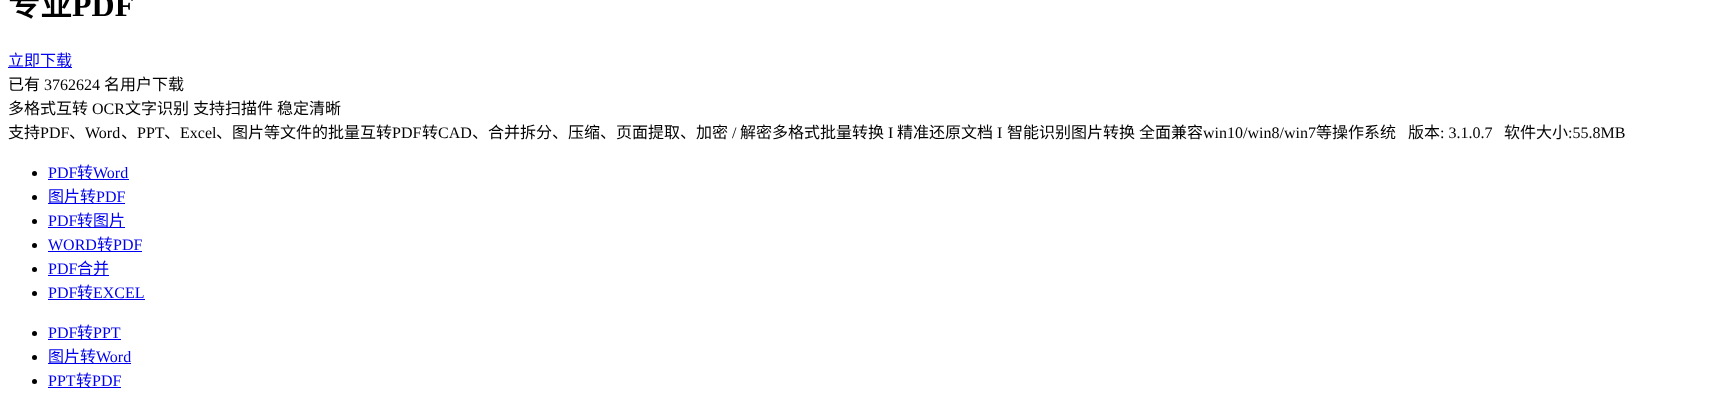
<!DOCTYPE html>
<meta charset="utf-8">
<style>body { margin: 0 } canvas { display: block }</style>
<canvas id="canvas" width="1718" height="395"></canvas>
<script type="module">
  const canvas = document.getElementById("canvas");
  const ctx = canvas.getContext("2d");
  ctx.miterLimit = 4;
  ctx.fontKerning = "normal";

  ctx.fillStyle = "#ffffff";
  ctx.fillRect(0, 0, 1718, 395);
  ctx.font = "bold 32px Noto Sans CJK SC";
  ctx.fillStyle = "#000000";
  ctx.fillText("专业", 8, 16);
  ctx.font = "bold 32px Liberation Serif";
  ctx.fillText("PDF", 72, 16);
  ctx.fillStyle = "#0000ee";
  ctx.fillRect(8, 67, 64, 1);
  ctx.font = "16px Noto Sans CJK SC";
  ctx.fillText("立即下载", 8, 66);
  ctx.fillStyle = "#000000";
  ctx.fillText("已有", 8, 90);
  ctx.font = "16px Liberation Serif";
  ctx.fillText("3762624", 44, 90);
  ctx.font = "16px Noto Sans CJK SC";
  ctx.fillText("名用户下载", 104, 90);
  ctx.fillText("多格式互转", 8, 114);
  ctx.font = "16px Liberation Serif";
  ctx.fillText("OCR", 92, 114);
  ctx.font = "16px Noto Sans CJK SC";
  ctx.fillText("文字识别", 125, 114);
  ctx.fillText("支持扫描件", 193, 114);
  ctx.fillText("稳定清晰", 277, 114);
  ctx.fillText("支持", 8, 138);
  ctx.font = "16px Liberation Serif";
  ctx.fillText("PDF", 40, 138);
  ctx.font = "16px Noto Sans CJK SC";
  ctx.fillText("、", 69, 138);
  ctx.font = "16px Liberation Serif";
  ctx.fillText("Word", 85, 138);
  ctx.font = "16px Noto Sans CJK SC";
  ctx.fillText("、", 121, 138);
  ctx.font = "16px Liberation Serif";
  ctx.fillText("PPT", 137, 138);
  ctx.font = "16px Noto Sans CJK SC";
  ctx.fillText("、", 164, 138);
  ctx.font = "16px Liberation Serif";
  ctx.fillText("Excel", 180, 138);
  ctx.font = "16px Noto Sans CJK SC";
  ctx.fillText("、图片等文件的批量互转", 216, 138);
  ctx.font = "16px Liberation Serif";
  ctx.fillText("PDF", 392, 138);
  ctx.font = "16px Noto Sans CJK SC";
  ctx.fillText("转", 422, 138);
  ctx.font = "16px Liberation Serif";
  ctx.fillText("CAD", 438, 138);
  ctx.font = "16px Noto Sans CJK SC";
  ctx.fillText("、合并拆分、压缩、页面提取、加密", 472, 138);
  ctx.font = "16px Liberation Serif";
  ctx.fillText("/", 732, 138);
  ctx.font = "16px Noto Sans CJK SC";
  ctx.fillText("解密多格式批量转换", 740, 138);
  ctx.font = "16px Liberation Serif";
  ctx.fillText("I", 888, 138);
  ctx.font = "16px Noto Sans CJK SC";
  ctx.fillText("精准还原文档", 897, 138);
  ctx.font = "16px Liberation Serif";
  ctx.fillText("I", 997, 138);
  ctx.font = "16px Noto Sans CJK SC";
  ctx.fillText("智能识别图片转换", 1007, 138);
  ctx.fillText("全面兼容", 1139, 138);
  ctx.font = "16px Liberation Serif";
  ctx.fillText("win10/win8/win7", 1203, 138);
  ctx.font = "16px Noto Sans CJK SC";
  ctx.fillText("等操作系统", 1316, 138);
  ctx.fillText("版本", 1408, 138);
  ctx.font = "16px Liberation Serif";
  ctx.fillText(": 3.1.0.7", 1440, 138);
  ctx.font = "16px Noto Sans CJK SC";
  ctx.fillText("软件大小", 1504, 138);
  ctx.font = "16px Liberation Serif";
  ctx.fillText(":55.8MB", 1568, 138);
  ctx.beginPath();
  ctx.arc(34.5, 173.5, 2.5, 0, Math.PI * 2);
  ctx.fill();
  ctx.fillStyle = "#0000ee";
  ctx.fillText("PDF", 48, 178);
  ctx.fillRect(48, 179, 81, 1);
  ctx.font = "16px Noto Sans CJK SC";
  ctx.fillText("转", 77, 178);
  ctx.font = "16px Liberation Serif";
  ctx.fillText("Word", 93, 178);
  ctx.fillStyle = "#000000";
  ctx.beginPath();
  ctx.arc(34.5, 197.5, 2.5, 0, Math.PI * 2);
  ctx.fill();
  ctx.fillStyle = "#0000ee";
  ctx.fillRect(48, 203, 77, 1);
  ctx.font = "16px Noto Sans CJK SC";
  ctx.fillText("图片转", 48, 202);
  ctx.font = "16px Liberation Serif";
  ctx.fillText("PDF", 96, 202);
  ctx.fillStyle = "#000000";
  ctx.beginPath();
  ctx.arc(34.5, 221.5, 2.5, 0, Math.PI * 2);
  ctx.fill();
  ctx.fillStyle = "#0000ee";
  ctx.fillText("PDF", 48, 226);
  ctx.fillRect(48, 227, 77, 1);
  ctx.font = "16px Noto Sans CJK SC";
  ctx.fillText("转图片", 77, 226);
  ctx.fillStyle = "#000000";
  ctx.beginPath();
  ctx.arc(34.5, 245.5, 2.5, 0, Math.PI * 2);
  ctx.fill();
  ctx.font = "16px Liberation Serif";
  ctx.fillStyle = "#0000ee";
  ctx.fillText("WORD", 48, 250);
  ctx.fillRect(48, 251, 94, 1);
  ctx.font = "16px Noto Sans CJK SC";
  ctx.fillText("转", 97, 250);
  ctx.font = "16px Liberation Serif";
  ctx.fillText("PDF", 113, 250);
  ctx.fillStyle = "#000000";
  ctx.beginPath();
  ctx.arc(34.5, 269.5, 2.5, 0, Math.PI * 2);
  ctx.fill();
  ctx.fillStyle = "#0000ee";
  ctx.fillText("PDF", 48, 274);
  ctx.fillRect(48, 275, 61, 1);
  ctx.font = "16px Noto Sans CJK SC";
  ctx.fillText("合并", 77, 274);
  ctx.fillStyle = "#000000";
  ctx.beginPath();
  ctx.arc(34.5, 293.5, 2.5, 0, Math.PI * 2);
  ctx.fill();
  ctx.font = "16px Liberation Serif";
  ctx.fillStyle = "#0000ee";
  ctx.fillText("PDF", 48, 298);
  ctx.fillRect(48, 299, 97, 1);
  ctx.font = "16px Noto Sans CJK SC";
  ctx.fillText("转", 77, 298);
  ctx.font = "16px Liberation Serif";
  ctx.fillText("EXCEL", 93, 298);
  ctx.fillStyle = "#000000";
  ctx.beginPath();
  ctx.arc(34.5, 333.5, 2.5, 0, Math.PI * 2);
  ctx.fill();
  ctx.fillStyle = "#0000ee";
  ctx.fillText("PDF", 48, 338);
  ctx.fillRect(48, 339, 73, 1);
  ctx.font = "16px Noto Sans CJK SC";
  ctx.fillText("转", 77, 338);
  ctx.font = "16px Liberation Serif";
  ctx.fillText("PPT", 93, 338);
  ctx.fillStyle = "#000000";
  ctx.beginPath();
  ctx.arc(34.5, 357.5, 2.5, 0, Math.PI * 2);
  ctx.fill();
  ctx.fillStyle = "#0000ee";
  ctx.fillRect(48, 363, 83, 1);
  ctx.font = "16px Noto Sans CJK SC";
  ctx.fillText("图片转", 48, 362);
  ctx.font = "16px Liberation Serif";
  ctx.fillText("Word", 96, 362);
  ctx.fillStyle = "#000000";
  ctx.beginPath();
  ctx.arc(34.5, 381.5, 2.5, 0, Math.PI * 2);
  ctx.fill();
  ctx.fillStyle = "#0000ee";
  ctx.fillText("PPT", 48, 386);
  ctx.fillRect(48, 387, 73, 1);
  ctx.font = "16px Noto Sans CJK SC";
  ctx.fillText("转", 76, 386);
  ctx.font = "16px Liberation Serif";
  ctx.fillText("PDF", 92, 386);
</script>
